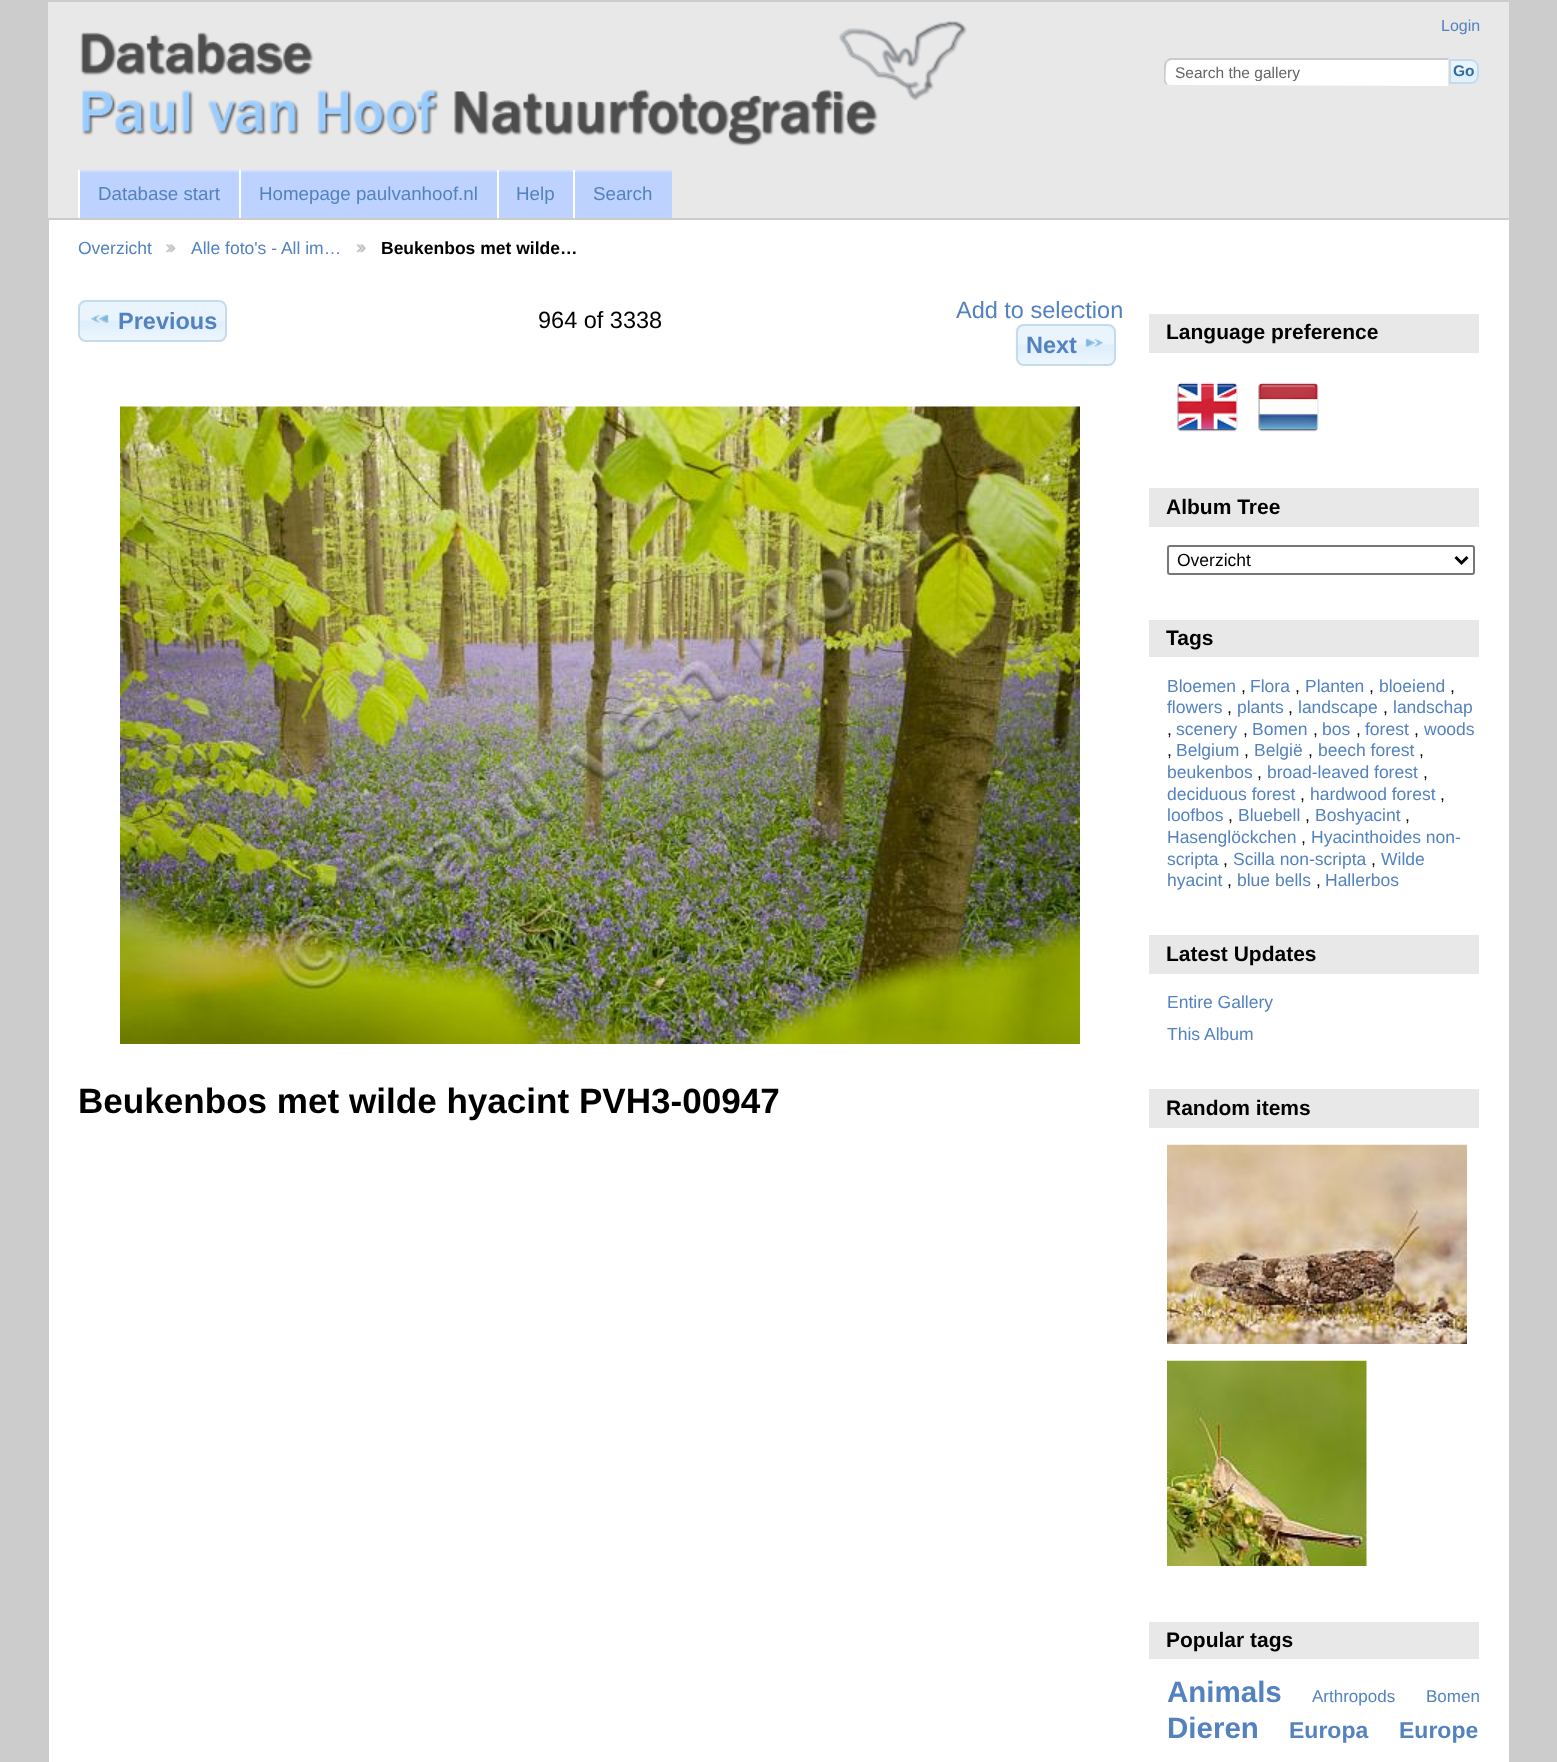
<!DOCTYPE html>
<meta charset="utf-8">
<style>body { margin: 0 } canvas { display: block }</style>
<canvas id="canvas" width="1557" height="1762"></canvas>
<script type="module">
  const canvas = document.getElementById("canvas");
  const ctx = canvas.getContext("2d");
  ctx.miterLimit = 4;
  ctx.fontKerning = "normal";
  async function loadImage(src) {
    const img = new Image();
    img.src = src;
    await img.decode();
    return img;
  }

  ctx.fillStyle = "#cccccc";
  ctx.fillRect(0, 0, 1557, 1762);
  ctx.fillStyle = "#ffffff";
  ctx.fillRect(49, 220, 1460, 1542);
  ctx.fillStyle = "#e8e8e8";
  ctx.fillRect(48, 2, 1461, 216);
  ctx.drawImage(await loadImage("img1.png"), 80, 21, 887, 125);
  ctx.font = "16px Liberation Sans";
  ctx.fillStyle = "#5382bf";
  ctx.fillText("Login", 1441, 31);
  ctx.fillStyle = "#ffffff";
  ctx.beginPath();
  ctx.roundRect(1164, 59, 285, 28, [8, 0, 0, 8]);
  ctx.fill();
  ctx.fillStyle = "#cccccc";
  ctx.beginPath();
  ctx.moveTo(1172, 60);
  ctx.bezierCurveTo(1170, 60, 1168, 61, 1168, 62);
  ctx.lineTo(1166, 61);
  ctx.lineTo(1169, 58);
  ctx.lineTo(1449, 58);
  ctx.lineTo(1448, 60);
  ctx.closePath();
  ctx.fill();
  ctx.fillStyle = "#e8e8e8";
  ctx.beginPath();
  ctx.moveTo(1449, 58.5);
  ctx.lineTo(1447.5, 60);
  ctx.lineTo(1448, 60);
  ctx.lineTo(1448, 86);
  ctx.lineTo(1449, 87);
  ctx.closePath();
  ctx.fill();
  ctx.beginPath();
  ctx.moveTo(1449, 87);
  ctx.lineTo(1448, 86);
  ctx.lineTo(1170, 85);
  ctx.lineTo(1167, 84);
  ctx.lineTo(1166, 85);
  ctx.bezierCurveTo(1167, 86, 1169, 87, 1172, 87);
  ctx.closePath();
  ctx.fill();
  ctx.fillStyle = "#cccccc";
  ctx.beginPath();
  ctx.moveTo(1164, 66);
  ctx.lineTo(1164, 80);
  ctx.bezierCurveTo(1164, 82, 1164.5, 83.5, 1166, 85);
  ctx.lineTo(1167.5, 83.5);
  ctx.bezierCurveTo(1166.5, 83, 1166, 81.5, 1165.5, 80);
  ctx.lineTo(1166, 66.5);
  ctx.bezierCurveTo(1166.5, 65, 1166.5, 63, 1167.5, 62);
  ctx.lineTo(1166, 60.5);
  ctx.bezierCurveTo(1164.5, 62, 1164, 64, 1164, 66);
  ctx.closePath();
  ctx.fill();
  ctx.save();
  ctx.beginPath();
  ctx.rect(1175, 65, 262, 16);
  ctx.clip();
  ctx.font = "15.5px Liberation Sans";
  ctx.fillStyle = "#666666";
  ctx.fillText("Search the gallery", 1175, 78);
  ctx.restore();
  ctx.drawImage(await loadImage("img2.png"), 1449, 58, 30, 26);
  ctx.beginPath();
  ctx.roundRect(1450, 60, 28, 23, [0, 7, 7, 0]);
  ctx.strokeStyle = "#c5dbec";
  ctx.lineWidth = 2;
  ctx.stroke();
  ctx.font = "bold 15.5px Liberation Sans";
  ctx.fillStyle = "#2e6e9e";
  ctx.fillText("Go", 1453, 76);
  ctx.fillStyle = "#bdd2ff";
  ctx.fillRect(80, 172, 159, 46);
  ctx.fillStyle = "#cfdeff";
  ctx.fillRect(78, 170, 594, 2);
  ctx.fillStyle = "#ffffff";
  ctx.fillRect(78, 170, 2, 48);
  ctx.font = "18.75px Liberation Sans";
  ctx.fillStyle = "#5382bf";
  ctx.fillText("Database start", 98, 200);
  ctx.fillStyle = "#bdd2ff";
  ctx.fillRect(241, 172, 256, 46);
  ctx.fillStyle = "#ffffff";
  ctx.fillRect(239, 170, 2, 48);
  ctx.fillStyle = "#5382bf";
  ctx.fillText("Homepage paulvanhoof.nl", 259, 200);
  ctx.fillStyle = "#bdd2ff";
  ctx.fillRect(499, 172, 74, 46);
  ctx.fillStyle = "#ffffff";
  ctx.fillRect(497, 170, 2, 48);
  ctx.fillStyle = "#5382bf";
  ctx.fillText("Help", 516, 200);
  ctx.fillStyle = "#bdd2ff";
  ctx.fillRect(575, 172, 97, 46);
  ctx.fillStyle = "#ffffff";
  ctx.fillRect(573, 170, 2, 48);
  ctx.fillStyle = "#5382bf";
  ctx.fillText("Search", 593, 200);
  ctx.font = "17.5px Liberation Sans";
  ctx.fillText("Overzicht", 78, 254);
  ctx.drawImage(await loadImage("img3.png"), 166, 244, 10, 9);
  ctx.fillText("Alle foto's - All im…", 191, 254);
  ctx.drawImage(await loadImage("img4.png"), 356, 244, 11, 9);
  ctx.font = "bold 17.5px Liberation Sans";
  ctx.fillStyle = "#000000";
  ctx.fillText("Beukenbos met wilde…", 381, 254);
  ctx.font = "23.5px Liberation Sans";
  ctx.fillStyle = "#5382bf";
  ctx.fillText("Add to selection", 956, 318);
  ctx.drawImage(await loadImage("img5.png"), 78, 300, 148, 42);
  ctx.beginPath();
  ctx.roundRect(79, 301, 147, 40, 7);
  ctx.stroke();
  ctx.drawImage(await loadImage("img6.png"), 91, 314, 18, 9);
  ctx.font = "bold 23.5px Liberation Sans";
  ctx.fillText("Previous", 118, 329);
  ctx.font = "23.5px Liberation Sans";
  ctx.fillStyle = "#000000";
  ctx.fillText("964 of 3338", 538, 328);
  ctx.drawImage(await loadImage("img7.png"), 1015, 324, 101, 42);
  ctx.beginPath();
  ctx.roundRect(1017, 325, 98, 40, 7);
  ctx.stroke();
  ctx.font = "bold 23.5px Liberation Sans";
  ctx.fillStyle = "#5382bf";
  ctx.fillText("Next", 1026, 353);
  ctx.drawImage(await loadImage("img8.png"), 1085, 338, 18, 9);
  ctx.drawImage(await loadImage("img9.png"), 120, 406, 960, 638);
  ctx.font = "bold 35.1px Liberation Sans";
  ctx.fillStyle = "#000000";
  ctx.fillText("Beukenbos met wilde hyacint PVH3-00947", 78, 1113);
  ctx.fillStyle = "#e8e8e8";
  ctx.fillRect(1149, 314, 330, 39);
  ctx.font = "bold 21px Liberation Sans";
  ctx.fillStyle = "#000000";
  ctx.fillText("Language preference", 1166, 339);
  ctx.drawImage(await loadImage("img10.png"), 1177, 382, 61, 50);
  ctx.drawImage(await loadImage("img11.png"), 1258, 382, 61, 50);
  ctx.fillStyle = "#e8e8e8";
  ctx.fillRect(1149, 488, 330, 39);
  ctx.fillStyle = "#000000";
  ctx.fillText("Album Tree", 1166, 514);
  ctx.beginPath();
  ctx.roundRect(1168, 546, 306, 28, 2);
  ctx.strokeStyle = "#767676";
  ctx.stroke();
  ctx.beginPath();
  ctx.moveTo(1455.5, 557);
  ctx.lineTo(1461.5, 563);
  ctx.lineTo(1467.5, 557);
  ctx.strokeStyle = "#000000";
  ctx.lineWidth = 3;
  ctx.stroke();
  ctx.font = "17.5px Liberation Sans";
  ctx.fillText("Overzicht", 1177, 566);
  ctx.fillStyle = "#e8e8e8";
  ctx.fillRect(1149, 620, 330, 37);
  ctx.font = "bold 21px Liberation Sans";
  ctx.fillStyle = "#000000";
  ctx.fillText("Tags", 1166, 645);
  ctx.font = "17.5px Liberation Sans";
  ctx.fillStyle = "#5382bf";
  ctx.fillText("Bloemen", 1167, 692);
  ctx.fillStyle = "#000000";
  ctx.fillText(",", 1241, 692);
  ctx.fillStyle = "#5382bf";
  ctx.fillText("Flora", 1250, 692);
  ctx.fillStyle = "#000000";
  ctx.fillText(",", 1295, 692);
  ctx.fillStyle = "#5382bf";
  ctx.fillText("Planten", 1305, 692);
  ctx.fillStyle = "#000000";
  ctx.fillText(",", 1369, 692);
  ctx.fillStyle = "#5382bf";
  ctx.fillText("bloeiend", 1379, 692);
  ctx.fillStyle = "#000000";
  ctx.fillText(",", 1450, 692);
  ctx.fillStyle = "#5382bf";
  ctx.fillText("flowers", 1167, 713);
  ctx.fillStyle = "#000000";
  ctx.fillText(",", 1227, 713);
  ctx.fillStyle = "#5382bf";
  ctx.fillText("plants", 1237, 713);
  ctx.fillStyle = "#000000";
  ctx.fillText(",", 1288, 713);
  ctx.fillStyle = "#5382bf";
  ctx.fillText("landscape", 1298, 713);
  ctx.fillStyle = "#000000";
  ctx.fillText(",", 1383, 713);
  ctx.fillStyle = "#5382bf";
  ctx.fillText("landschap", 1393, 713);
  ctx.fillStyle = "#000000";
  ctx.fillText(",", 1167, 735);
  ctx.fillStyle = "#5382bf";
  ctx.fillText("scenery", 1176, 735);
  ctx.fillStyle = "#000000";
  ctx.fillText(",", 1243, 735);
  ctx.fillStyle = "#5382bf";
  ctx.fillText("Bomen", 1252, 735);
  ctx.fillStyle = "#000000";
  ctx.fillText(",", 1313, 735);
  ctx.fillStyle = "#5382bf";
  ctx.fillText("bos", 1322, 735);
  ctx.fillStyle = "#000000";
  ctx.fillText(",", 1356, 735);
  ctx.fillStyle = "#5382bf";
  ctx.fillText("forest", 1365, 735);
  ctx.fillStyle = "#000000";
  ctx.fillText(",", 1414, 735);
  ctx.fillStyle = "#5382bf";
  ctx.fillText("woods", 1424, 735);
  ctx.fillStyle = "#000000";
  ctx.fillText(",", 1167, 756);
  ctx.fillStyle = "#5382bf";
  ctx.fillText("Belgium", 1176, 756);
  ctx.fillStyle = "#000000";
  ctx.fillText(",", 1244, 756);
  ctx.fillStyle = "#5382bf";
  ctx.fillText("België", 1254, 756);
  ctx.fillStyle = "#000000";
  ctx.fillText(",", 1308, 756);
  ctx.fillStyle = "#5382bf";
  ctx.fillText("beech forest", 1318, 756);
  ctx.fillStyle = "#000000";
  ctx.fillText(",", 1419, 756);
  ctx.fillStyle = "#5382bf";
  ctx.fillText("beukenbos", 1167, 778);
  ctx.fillStyle = "#000000";
  ctx.fillText(",", 1257, 778);
  ctx.fillStyle = "#5382bf";
  ctx.fillText("broad-leaved forest", 1267, 778);
  ctx.fillStyle = "#000000";
  ctx.fillText(",", 1423, 778);
  ctx.fillStyle = "#5382bf";
  ctx.fillText("deciduous forest", 1167, 800);
  ctx.fillStyle = "#000000";
  ctx.fillText(",", 1300, 800);
  ctx.fillStyle = "#5382bf";
  ctx.fillText("hardwood forest", 1310, 800);
  ctx.fillStyle = "#000000";
  ctx.fillText(",", 1440, 800);
  ctx.fillStyle = "#5382bf";
  ctx.fillText("loofbos", 1167, 821);
  ctx.fillStyle = "#000000";
  ctx.fillText(",", 1228, 821);
  ctx.fillStyle = "#5382bf";
  ctx.fillText("Bluebell", 1238, 821);
  ctx.fillStyle = "#000000";
  ctx.fillText(",", 1305, 821);
  ctx.fillStyle = "#5382bf";
  ctx.fillText("Boshyacint", 1315, 821);
  ctx.fillStyle = "#000000";
  ctx.fillText(",", 1405, 821);
  ctx.fillStyle = "#5382bf";
  ctx.fillText("Hasenglöckchen", 1167, 843);
  ctx.fillStyle = "#000000";
  ctx.fillText(",", 1301, 843);
  ctx.fillStyle = "#5382bf";
  ctx.fillText("Hyacinthoides non-", 1311, 843);
  ctx.fillText("scripta", 1167, 865);
  ctx.fillStyle = "#000000";
  ctx.fillText(",", 1223, 865);
  ctx.fillStyle = "#5382bf";
  ctx.fillText("Scilla non-scripta", 1233, 865);
  ctx.fillStyle = "#000000";
  ctx.fillText(",", 1371, 865);
  ctx.fillStyle = "#5382bf";
  ctx.fillText("Wilde", 1381, 865);
  ctx.fillText("hyacint", 1167, 886);
  ctx.fillStyle = "#000000";
  ctx.fillText(",", 1227, 886);
  ctx.fillStyle = "#5382bf";
  ctx.fillText("blue bells", 1237, 886);
  ctx.fillStyle = "#000000";
  ctx.fillText(",", 1316, 886);
  ctx.fillStyle = "#5382bf";
  ctx.fillText("Hallerbos", 1325, 886);
  ctx.fillStyle = "#e8e8e8";
  ctx.fillRect(1149, 935, 330, 39);
  ctx.font = "bold 21px Liberation Sans";
  ctx.fillStyle = "#000000";
  ctx.fillText("Latest Updates", 1166, 961);
  ctx.font = "17.5px Liberation Sans";
  ctx.fillStyle = "#5382bf";
  ctx.fillText("Entire Gallery", 1167, 1008);
  ctx.fillText("This Album", 1167, 1040);
  ctx.fillStyle = "#e8e8e8";
  ctx.fillRect(1149, 1089, 330, 39);
  ctx.font = "bold 21px Liberation Sans";
  ctx.fillStyle = "#000000";
  ctx.fillText("Random items", 1166, 1115);
  ctx.drawImage(await loadImage("img12.png"), 1167, 1144, 300, 200);
  ctx.drawImage(await loadImage("img13.png"), 1167, 1360, 200, 206);
  ctx.fillStyle = "#e8e8e8";
  ctx.fillRect(1149, 1622, 330, 37);
  ctx.fillStyle = "#000000";
  ctx.fillText("Popular tags", 1166, 1647);
  ctx.font = "bold 29.5px Liberation Sans";
  ctx.fillStyle = "#5382bf";
  ctx.fillText("Animals", 1167, 1702);
  ctx.font = "17px Liberation Sans";
  ctx.fillText("Arthropods", 1312, 1702);
  ctx.fillText("Bomen", 1426, 1702);
  ctx.font = "bold 29.5px Liberation Sans";
  ctx.fillText("Dieren", 1167, 1738);
  ctx.font = "bold 23px Liberation Sans";
  ctx.fillText("Europa", 1289, 1738);
  ctx.fillText("Europe", 1399, 1738);
</script>
